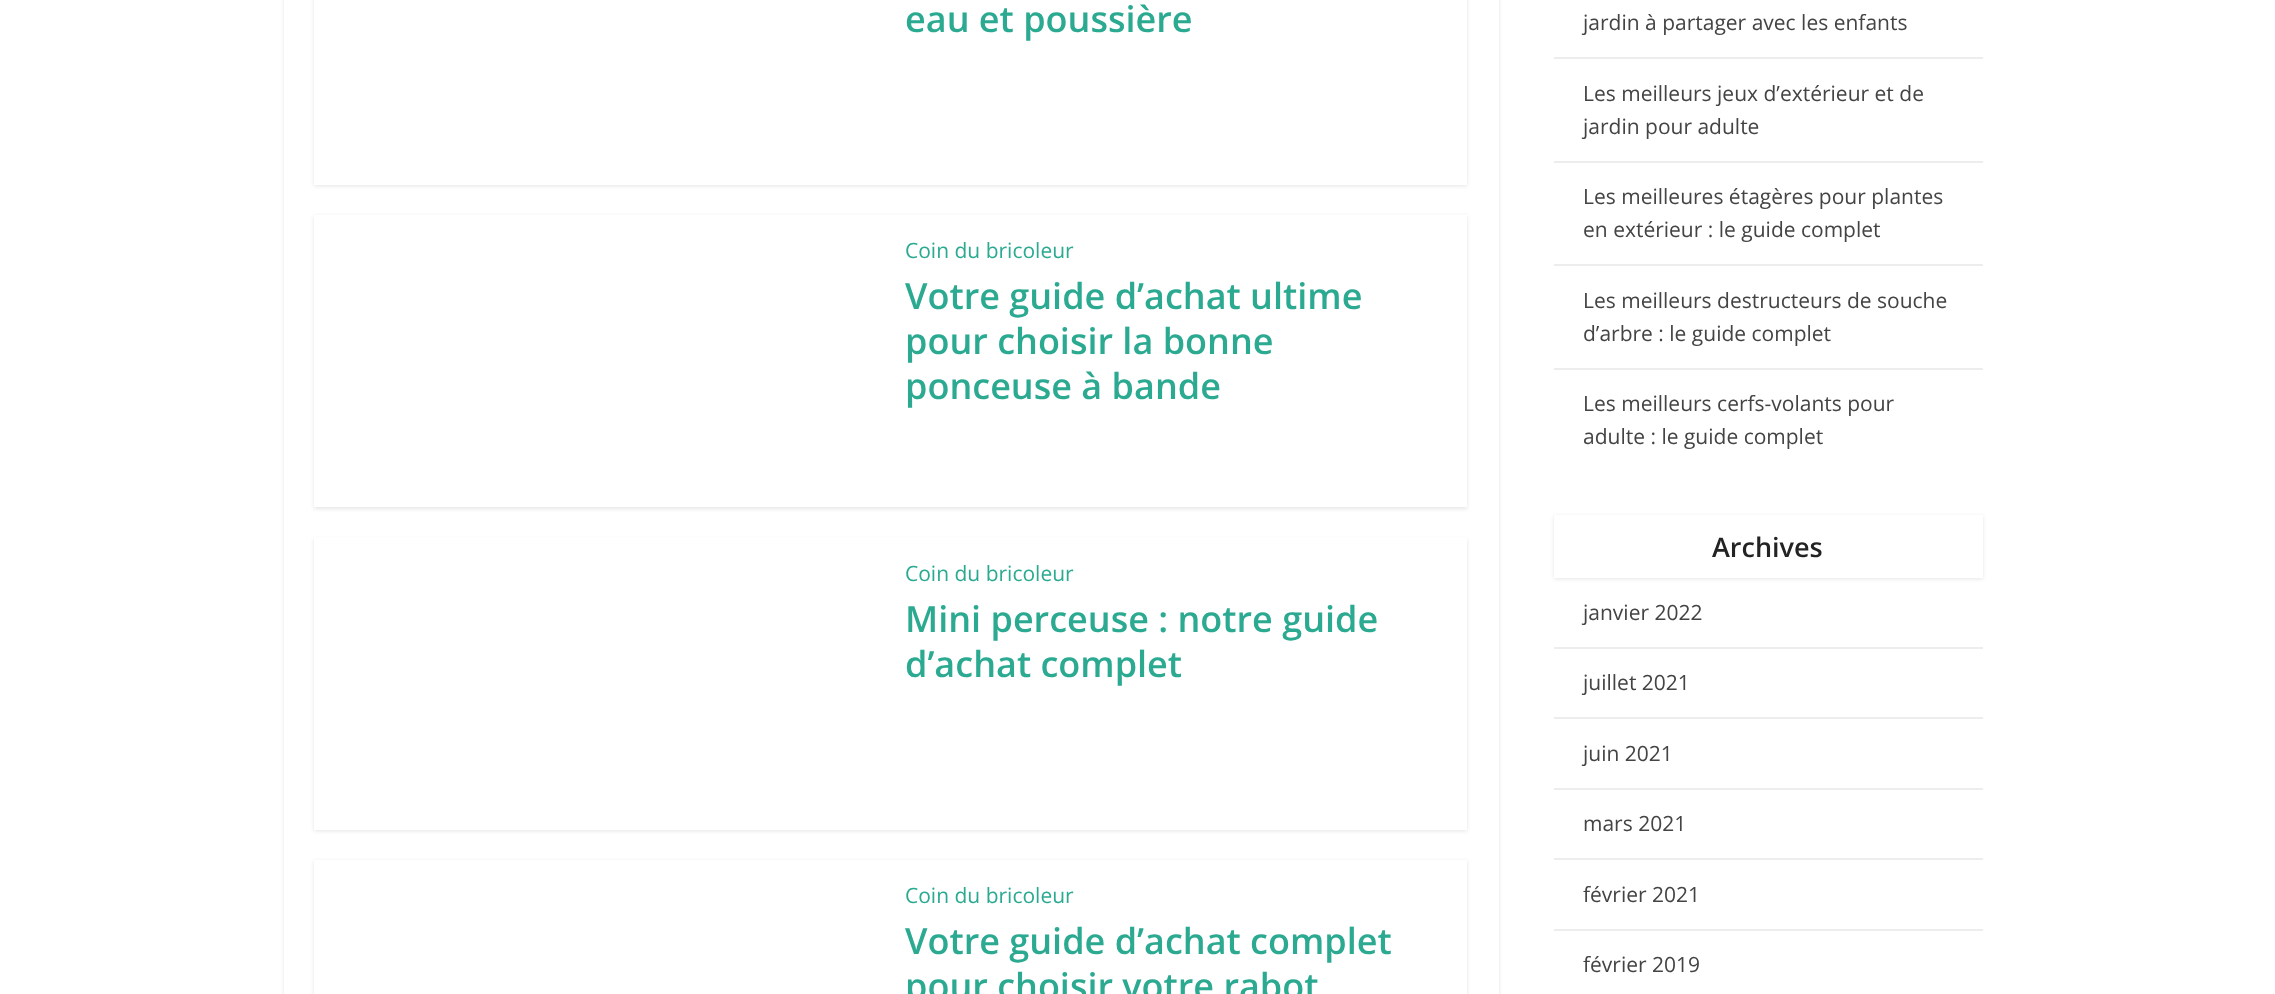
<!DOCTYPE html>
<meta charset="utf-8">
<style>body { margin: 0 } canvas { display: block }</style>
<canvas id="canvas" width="2275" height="994"></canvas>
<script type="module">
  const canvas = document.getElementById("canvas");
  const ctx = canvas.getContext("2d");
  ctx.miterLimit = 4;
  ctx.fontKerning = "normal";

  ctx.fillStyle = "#ffffff";
  ctx.fillRect(0, 0, 2275, 994);
  ctx.fillStyle = "rgba(0, 0, 0, 0.1)";
  ctx.filter = "blur(2px)";
  ctx.beginPath();
  ctx.rect(284, -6, 1215, 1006);
  ctx.fill();
  ctx.filter = "none";
  ctx.fillStyle = "#ffffff";
  ctx.fillRect(284, 0, 1215, 994);
  ctx.fillStyle = "rgba(0, 0, 0, 0.1)";
  ctx.filter = "blur(2px)";
  ctx.beginPath();
  ctx.rect(314, -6, 1153, 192);
  ctx.fill();
  ctx.filter = "none";
  ctx.fillStyle = "#ffffff";
  ctx.fillRect(314, 0, 1153, 185);
  ctx.font = "600 36px Open Sans";
  ctx.fillStyle = "#2baa91";
  ctx.fillText("eau et poussière", 905, 32);
  ctx.save();
  ctx.beginPath();
  ctx.moveTo(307, 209);
  ctx.lineTo(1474, 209);
  ctx.lineTo(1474, 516);
  ctx.lineTo(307, 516);
  ctx.closePath();
  ctx.moveTo(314, 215);
  ctx.lineTo(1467, 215);
  ctx.lineTo(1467, 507);
  ctx.lineTo(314, 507);
  ctx.closePath();
  ctx.clip("evenodd");
  ctx.fillStyle = "rgba(0, 0, 0, 0.1)";
  ctx.filter = "blur(2px)";
  ctx.beginPath();
  ctx.rect(314, 216, 1153, 293);
  ctx.fill();
  ctx.filter = "none";
  ctx.restore();
  ctx.font = "21px Open Sans";
  ctx.fillText("Coin du bricoleur", 905, 258);
  ctx.font = "600 36px Open Sans";
  ctx.fillText("Votre guide d’achat ultime", 905, 309);
  ctx.fillText("pour choisir la bonne", 905, 354);
  ctx.fillText("ponceuse à bande", 905, 399);
  ctx.fillStyle = "rgba(0, 0, 0, 0.1)";
  ctx.filter = "blur(2px)";
  ctx.beginPath();
  ctx.rect(314, 539, 1153, 292);
  ctx.fill();
  ctx.filter = "none";
  ctx.fillStyle = "#ffffff";
  ctx.fillRect(314, 537, 1153, 293);
  ctx.font = "21px Open Sans";
  ctx.fillStyle = "#2baa91";
  ctx.fillText("Coin du bricoleur", 905, 581);
  ctx.font = "600 36px Open Sans";
  ctx.fillText("Mini perceuse : notre guide", 905, 632);
  ctx.fillText("d’achat complet", 905, 677);
  ctx.save();
  ctx.beginPath();
  ctx.moveTo(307, 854);
  ctx.lineTo(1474, 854);
  ctx.lineTo(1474, 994);
  ctx.lineTo(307, 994);
  ctx.closePath();
  ctx.moveTo(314, 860);
  ctx.lineTo(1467, 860);
  ctx.lineTo(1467, 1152);
  ctx.lineTo(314, 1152);
  ctx.closePath();
  ctx.clip("evenodd");
  ctx.fillStyle = "rgba(0, 0, 0, 0.1)";
  ctx.filter = "blur(2px)";
  ctx.beginPath();
  ctx.rect(314, 861, 1153, 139);
  ctx.fill();
  ctx.filter = "none";
  ctx.restore();
  ctx.font = "21px Open Sans";
  ctx.fillText("Coin du bricoleur", 905, 903);
  ctx.font = "600 36px Open Sans";
  ctx.fillText("Votre guide d’achat complet", 905, 954);
  ctx.fillText("pour choisir votre rabot", 905, 999);
  ctx.fillStyle = "#ededed";
  ctx.fillRect(1554, 57, 429, 2);
  ctx.font = "21px Open Sans";
  ctx.fillStyle = "#444444";
  ctx.fillText("jardin à partager avec les enfants", 1583, 30);
  ctx.fillStyle = "#ededed";
  ctx.fillRect(1554, 161, 429, 2);
  ctx.fillStyle = "#444444";
  ctx.fillText("Les meilleurs jeux d’extérieur et de", 1583, 101);
  ctx.fillText("jardin pour adulte", 1583, 134);
  ctx.fillStyle = "#ededed";
  ctx.fillRect(1554, 264, 429, 2);
  ctx.fillStyle = "#444444";
  ctx.fillText("Les meilleures étagères pour plantes", 1583, 204);
  ctx.fillText("en extérieur : le guide complet", 1583, 237);
  ctx.fillStyle = "#ededed";
  ctx.fillRect(1554, 368, 429, 2);
  ctx.fillStyle = "#444444";
  ctx.fillText("Les meilleurs destructeurs de souche", 1583, 308);
  ctx.fillText("d’arbre : le guide complet", 1583, 341);
  ctx.fillText("Les meilleurs cerfs-volants pour", 1583, 411);
  ctx.fillText("adulte : le guide complet", 1583, 444);
  ctx.fillStyle = "rgba(0, 0, 0, 0.1)";
  ctx.filter = "blur(2px)";
  ctx.beginPath();
  ctx.rect(1554, 516, 429, 63);
  ctx.fill();
  ctx.filter = "none";
  ctx.fillStyle = "#ffffff";
  ctx.fillRect(1554, 515, 429, 63);
  ctx.font = "600 27px Open Sans";
  ctx.fillStyle = "#232323";
  ctx.fillText("Archives", 1712, 557);
  ctx.fillStyle = "#ededed";
  ctx.fillRect(1554, 647, 429, 2);
  ctx.font = "21px Open Sans";
  ctx.fillStyle = "#444444";
  ctx.fillText("janvier 2022", 1583, 620);
  ctx.fillStyle = "#ededed";
  ctx.fillRect(1554, 717, 429, 2);
  ctx.fillStyle = "#444444";
  ctx.fillText("juillet 2021", 1583, 690);
  ctx.fillStyle = "#ededed";
  ctx.fillRect(1554, 788, 429, 2);
  ctx.fillStyle = "#444444";
  ctx.fillText("juin 2021", 1583, 761);
  ctx.fillStyle = "#ededed";
  ctx.fillRect(1554, 858, 429, 2);
  ctx.fillStyle = "#444444";
  ctx.fillText("mars 2021", 1583, 831);
  ctx.fillStyle = "#ededed";
  ctx.fillRect(1554, 929, 429, 2);
  ctx.fillStyle = "#444444";
  ctx.fillText("février 2021", 1583, 902);
  ctx.fillText("février 2019", 1583, 972);
</script>
